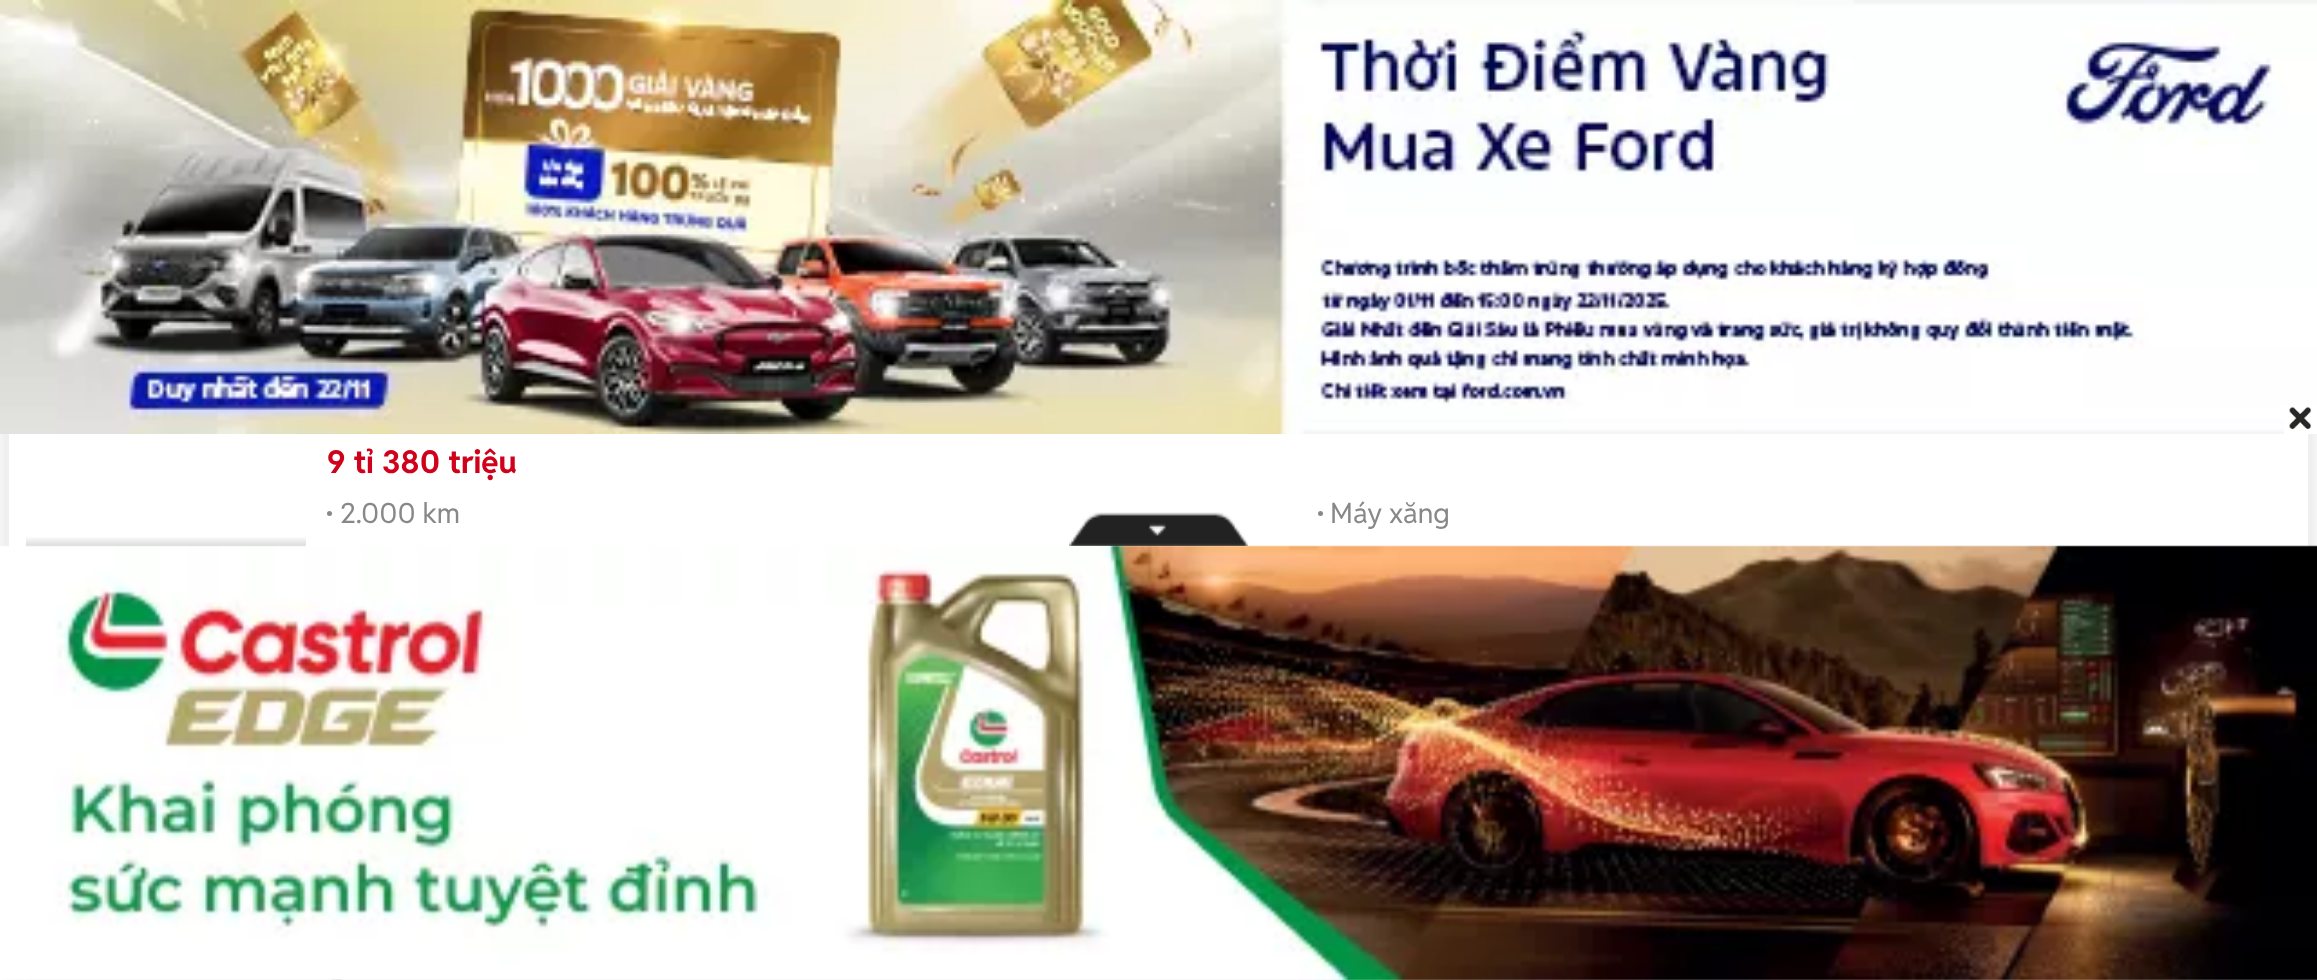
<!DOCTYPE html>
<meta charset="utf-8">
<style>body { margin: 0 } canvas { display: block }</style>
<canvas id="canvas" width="2317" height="980"></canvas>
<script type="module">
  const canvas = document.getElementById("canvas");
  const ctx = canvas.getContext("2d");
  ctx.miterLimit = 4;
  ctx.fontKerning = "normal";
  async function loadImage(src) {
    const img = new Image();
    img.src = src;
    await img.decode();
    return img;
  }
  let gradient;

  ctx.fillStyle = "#ffffff";
  ctx.fillRect(0, 0, 2317, 980);
  ctx.fillStyle = "rgba(0, 0, 0, 0.14)";
  ctx.filter = "blur(10.5px)";
  ctx.beginPath();
  ctx.roundRect(7, 378, 2303, 366, 11);
  ctx.fill();
  ctx.filter = "none";
  ctx.fillStyle = "#ffffff";
  ctx.fillRect(9, 434, 2299, 113);
  ctx.strokeStyle = "#f0f0f0";
  ctx.lineWidth = 2;
  ctx.strokeRect(8, 379, 2301, 364);
  ctx.drawImage(await loadImage("img1.png"), 0, 0, 2317, 434);
  ctx.drawImage(await loadImage("img2.png"), 2284, 406, 33, 28);
  ctx.font = "bold 31.5px Reddit Sans";
  ctx.fillStyle = "#d0011b";
  ctx.fillText("9 tỉ 380 triệu", 327, 473);
  ctx.fillStyle = "#888888";
  ctx.beginPath();
  ctx.arc(329.5, 513.5, 2.5, 0, Math.PI * 2);
  ctx.fill();
  ctx.font = "28px Reddit Sans";
  ctx.fillText("2.000 km", 340, 523);
  ctx.beginPath();
  ctx.arc(1320.5, 513.5, 2.5, 0, Math.PI * 2);
  ctx.fill();
  ctx.fillText("Máy xăng", 1330, 523);
  gradient = ctx.createLinearGradient(166, 536, 166, 607);
  gradient.addColorStop(0, "#ffffff");
  gradient.addColorStop(1, "#000000");
  ctx.fillStyle = gradient;
  ctx.fillRect(26, 537, 280, 10);
  ctx.fillStyle = "rgba(0, 0, 0, 0.14)";
  ctx.filter = "blur(10.5px)";
  ctx.beginPath();
  ctx.roundRect(7, 754, 2303, 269, 11);
  ctx.fill();
  ctx.filter = "none";
  ctx.strokeRect(8, 755, 2301, 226);
  ctx.drawImage(await loadImage("img3.png"), 331, 979, 12, 1);
  ctx.drawImage(await loadImage("img4.png"), 1069, 512, 179, 34);
  ctx.drawImage(await loadImage("img5.png"), 0, 545, 2317, 435);
</script>
